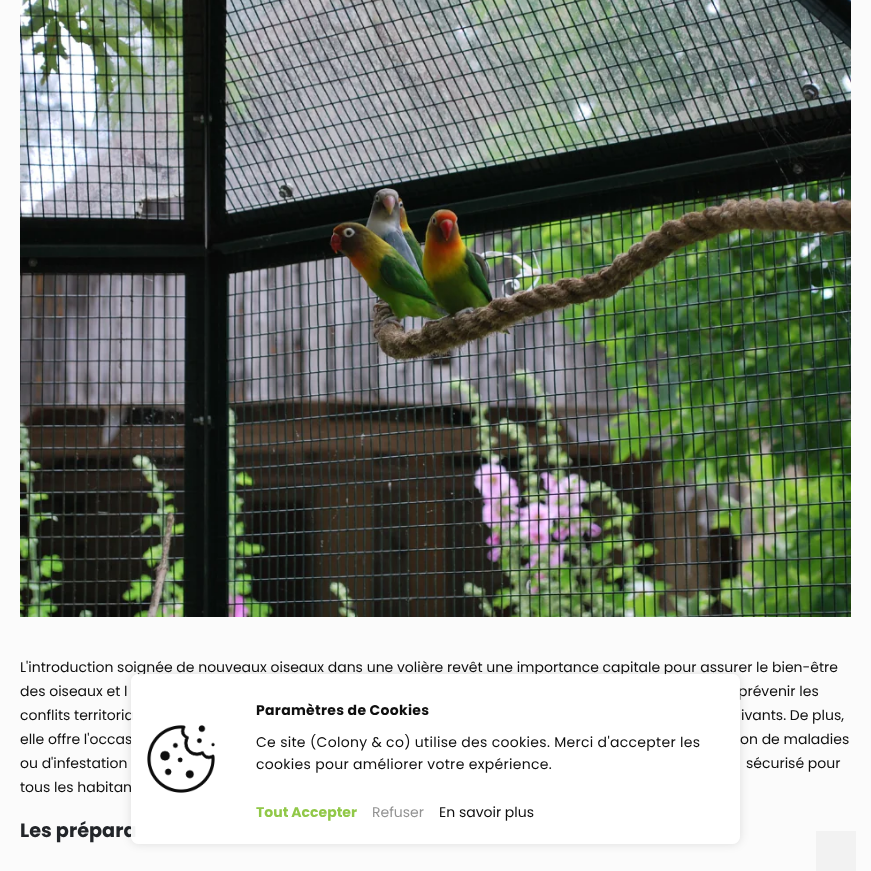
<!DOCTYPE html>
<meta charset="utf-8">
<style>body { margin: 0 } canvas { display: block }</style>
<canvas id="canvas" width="871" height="871"></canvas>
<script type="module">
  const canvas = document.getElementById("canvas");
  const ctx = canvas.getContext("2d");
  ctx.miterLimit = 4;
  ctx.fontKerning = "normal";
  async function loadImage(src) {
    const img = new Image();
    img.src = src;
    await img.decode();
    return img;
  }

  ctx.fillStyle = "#fbfbfb";
  ctx.fillRect(0, 0, 871, 871);
  ctx.drawImage(await loadImage("img1.png"), 20, 0, 831, 617);
  ctx.font = "14px Poppins";
  ctx.fillStyle = "#0f0f0f";
  ctx.fillText("L'introduction soignée de nouveaux oiseaux dans une volière revêt une importance capitale pour assurer le bien-être", 20, 672);
  ctx.fillText("des oiseaux et l", 20, 696);
  ctx.fillText("prévenir les", 738, 696);
  ctx.fillText("conflits territoria", 20, 720);
  ctx.fillText("ivants. De plus,", 741, 720);
  ctx.fillText("elle offre l'occas", 20, 744);
  ctx.fillText("on de maladies", 740, 744);
  ctx.fillText("ou d'infestation", 20, 768);
  ctx.fillText("sécurisé pour", 746, 768);
  ctx.fillText("tous les habitan", 20, 792);
  ctx.font = "bold 19.25px Poppins";
  ctx.fillStyle = "#222529";
  ctx.fillText("Les prépara", 20, 837);
  ctx.fillStyle = "#f2f2f2";
  ctx.fillRect(816, 831, 40, 40);
  ctx.save();
  ctx.beginPath();
  ctx.moveTo(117, 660);
  ctx.lineTo(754, 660);
  ctx.lineTo(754, 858);
  ctx.lineTo(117, 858);
  ctx.closePath();
  ctx.moveTo(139, 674);
  ctx.lineTo(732, 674);
  ctx.bezierCurveTo(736.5, 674, 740, 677.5, 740, 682);
  ctx.lineTo(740, 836);
  ctx.bezierCurveTo(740, 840.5, 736.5, 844, 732, 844);
  ctx.lineTo(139, 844);
  ctx.bezierCurveTo(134.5, 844, 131, 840.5, 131, 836);
  ctx.lineTo(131, 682);
  ctx.bezierCurveTo(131, 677.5, 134.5, 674, 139, 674);
  ctx.closePath();
  ctx.clip("evenodd");
  ctx.fillStyle = "rgba(0, 0, 0, 0.1)";
  ctx.filter = "blur(4px)";
  ctx.beginPath();
  ctx.roundRect(130, 673, 611, 172, 9);
  ctx.fill();
  ctx.filter = "none";
  ctx.restore();
  ctx.fillStyle = "rgba(255, 255, 255, 0.95)";
  ctx.beginPath();
  ctx.roundRect(131, 674, 609, 170, 8);
  ctx.fill();
  ctx.drawImage(await loadImage("img2.png"), 147, 725, 68, 68);
  ctx.letterSpacing = "0.3px";
  ctx.font = "bold 14px Poppins";
  ctx.fillStyle = "#0f0f0f";
  ctx.fillText("Paramètres de Cookies", 256, 715);
  ctx.font = "14px Poppins";
  ctx.fillText("Ce site (Colony & co) utilise des cookies. Merci d'accepter les", 256, 747);
  ctx.fillText("cookies pour améliorer votre expérience.", 256, 769);
  ctx.letterSpacing = "0px";
  ctx.font = "bold 14px Poppins";
  ctx.fillStyle = "#91c848";
  ctx.fillText("Tout Accepter", 256, 817);
  ctx.font = "14px Poppins";
  ctx.fillStyle = "#939393";
  ctx.fillText("Refuser", 372, 817);
  ctx.fillStyle = "#0f0f0f";
  ctx.fillText("En savoir plus", 439, 817);
</script>
